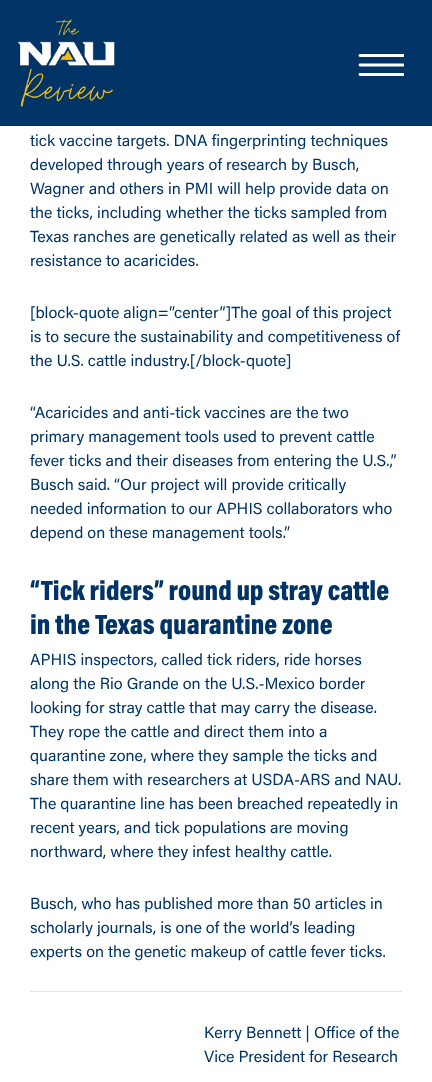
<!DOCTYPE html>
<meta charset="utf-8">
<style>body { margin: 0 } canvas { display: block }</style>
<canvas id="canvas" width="432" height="1082"></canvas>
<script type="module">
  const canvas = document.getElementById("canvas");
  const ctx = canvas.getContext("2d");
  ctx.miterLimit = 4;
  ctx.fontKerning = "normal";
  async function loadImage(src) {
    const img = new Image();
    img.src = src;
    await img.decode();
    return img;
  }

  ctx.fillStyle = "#ffffff";
  ctx.fillRect(0, 0, 432, 1082);
  ctx.fillStyle = "#003466";
  ctx.fillRect(0, 0, 432, 126);
  ctx.drawImage(await loadImage("img1.png"), 17, 19, 98, 88);
  ctx.save();
  ctx.beginPath();
  ctx.rect(356, 51, 48, 32);
  ctx.clip();
  ctx.beginPath();
  ctx.moveTo(360, 55.5);
  ctx.lineTo(403, 55.5);
  ctx.moveTo(360, 65);
  ctx.lineTo(403, 65);
  ctx.moveTo(360, 74.5);
  ctx.lineTo(403, 74.5);
  ctx.strokeStyle = "#ffffff";
  ctx.lineWidth = 2.9;
  ctx.lineCap = "round";
  ctx.stroke();
  ctx.restore();
  ctx.font = "16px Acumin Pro";
  ctx.fillText("tick vaccine targets. DNA fingerprinting techniques", 30, 146);
  ctx.fillText("developed through years of research by Busch,", 30, 170);
  ctx.fillText("Wagner and others in PMI will help provide data on", 30, 194);
  ctx.fillText("the ticks, including whether the ticks sampled from", 30, 218);
  ctx.fillText("Texas ranches are genetically related as well as their", 30, 242);
  ctx.fillText("resistance to acaricides.", 30, 266);
  ctx.fillText("[block-quote align=”center”]The goal of this project", 30, 318);
  ctx.fillText("is to secure the sustainability and competitiveness of", 30, 342);
  ctx.fillText("the U.S. cattle industry.[/block-quote]", 30, 366);
  ctx.fillText("“Acaricides and anti-tick vaccines are the two", 30, 418);
  ctx.fillText("primary management tools used to prevent cattle", 30, 442);
  ctx.fillText("fever ticks and their diseases from entering the U.S.,”", 30, 466);
  ctx.fillText("Busch said. “Our project will provide critically", 30, 490);
  ctx.fillText("needed information to our APHIS collaborators who", 30, 514);
  ctx.fillText("depend on these management tools.”", 30, 538);
  ctx.font = "900 28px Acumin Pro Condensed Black";
  ctx.fillText("“Tick riders” round up stray cattle", 30, 600);
  ctx.fillText("in the Texas quarantine zone", 30, 634);
  ctx.font = "16px Acumin Pro";
  ctx.fillText("APHIS inspectors, called tick riders, ride horses", 30, 665);
  ctx.fillText("along the Rio Grande on the U.S.-Mexico border", 30, 689);
  ctx.fillText("looking for stray cattle that may carry the disease.", 30, 713);
  ctx.fillText("They rope the cattle and direct them into a", 30, 737);
  ctx.fillText("quarantine zone, where they sample the ticks and", 30, 761);
  ctx.fillText("share them with researchers at USDA-ARS and NAU.", 30, 785);
  ctx.fillText("The quarantine line has been breached repeatedly in", 30, 809);
  ctx.fillText("recent years, and tick populations are moving", 30, 833);
  ctx.fillText("northward, where they infest healthy cattle.", 30, 857);
  ctx.fillText("Busch, who has published more than 50 articles in", 30, 909);
  ctx.fillText("scholarly journals, is one of the world’s leading", 30, 933);
  ctx.fillText("experts on the genetic makeup of cattle fever ticks.", 30, 957);
  ctx.fillStyle = "#e6e6e6";
  ctx.fillRect(30, 991, 372, 1);
  ctx.fillStyle = "#003466";
  ctx.fillText("Kerry Bennett | Office of the", 204, 1038);
  ctx.fillText("Vice President for Research", 204, 1062);
</script>
